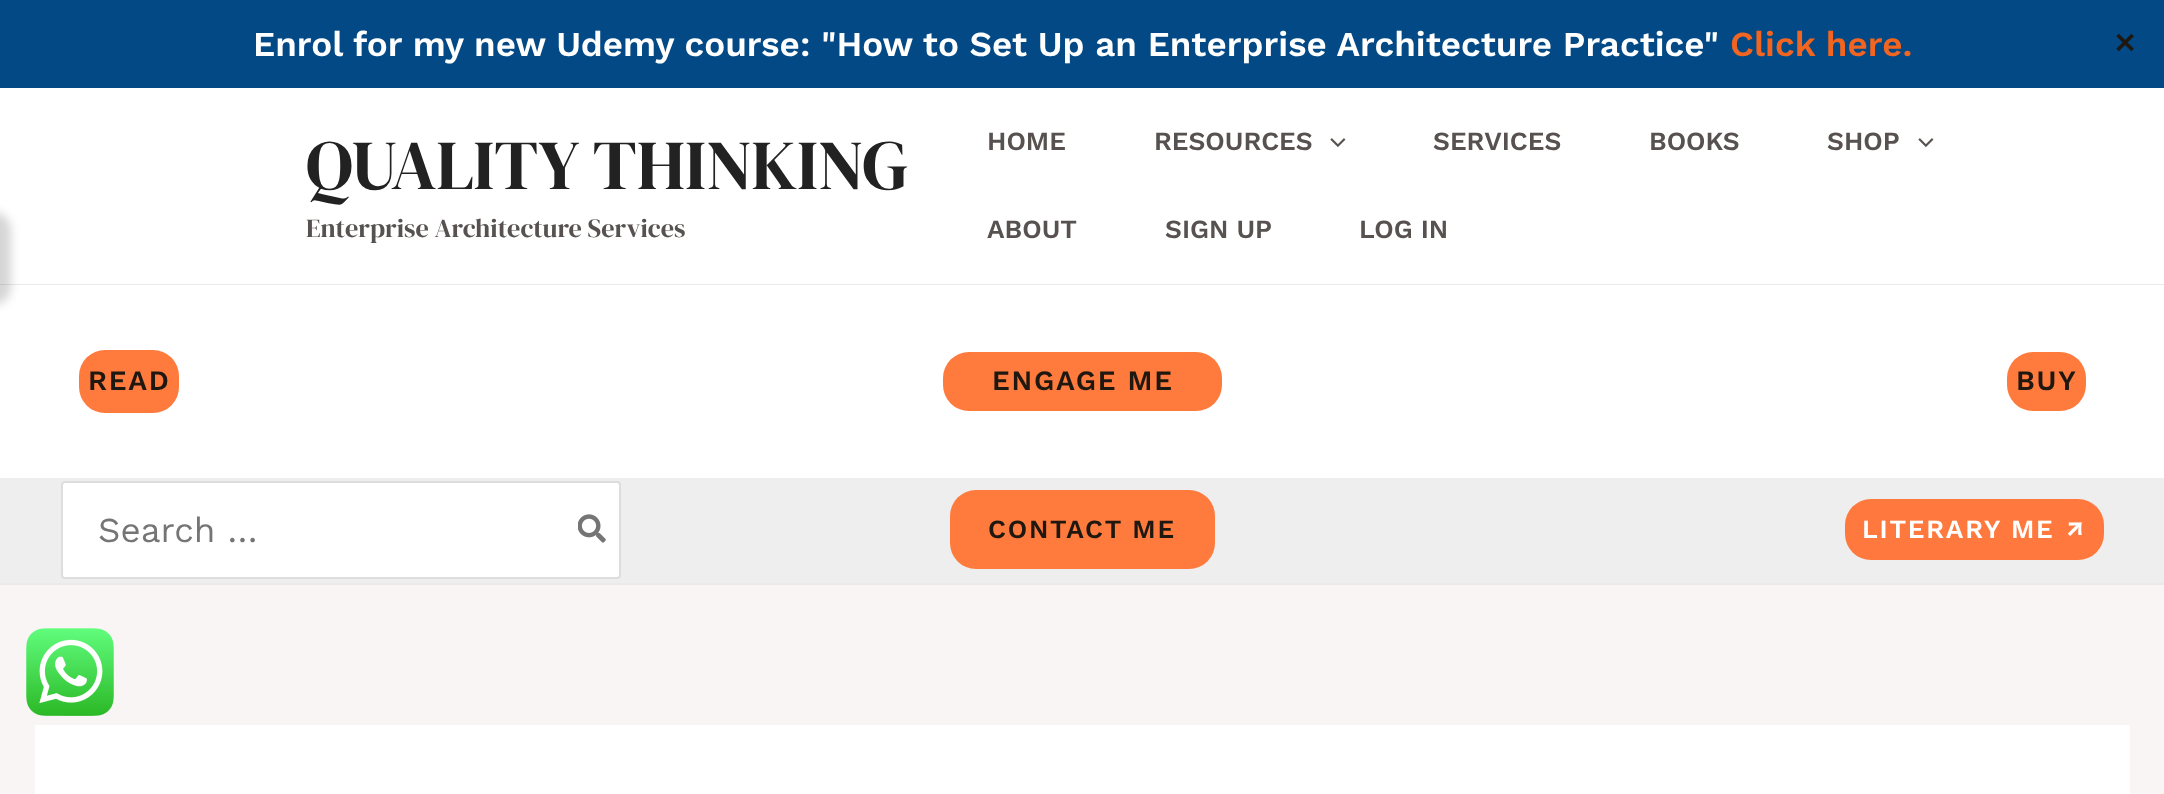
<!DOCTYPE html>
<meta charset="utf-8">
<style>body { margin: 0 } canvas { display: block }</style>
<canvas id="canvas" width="2164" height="794"></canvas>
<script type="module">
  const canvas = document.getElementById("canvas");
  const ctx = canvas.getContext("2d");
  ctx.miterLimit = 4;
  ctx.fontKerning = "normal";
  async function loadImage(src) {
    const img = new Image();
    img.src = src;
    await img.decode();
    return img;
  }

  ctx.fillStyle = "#f8f5f4";
  ctx.fillRect(0, 0, 2164, 794);
  ctx.fillStyle = "#024985";
  ctx.fillRect(0, 0, 2164, 88);
  ctx.font = "600 35px Work Sans";
  ctx.fillStyle = "#ffffff";
  ctx.fillText("Enrol for my new Udemy course: \"How to Set Up an Enterprise Architecture Practice\"", 253, 56);
  ctx.fillStyle = "#f16521";
  ctx.fillText("Click here.", 1730, 56);
  ctx.letterSpacing = "1.75px";
  ctx.font = "bold 28px DejaVu Sans";
  ctx.fillStyle = "#1e1810";
  ctx.fillText("✕", 2113, 53);
  ctx.fillStyle = "#ffffff";
  ctx.fillRect(0, 88, 2164, 196);
  ctx.fillStyle = "#eaeaea";
  ctx.fillRect(0, 284, 2164, 1);
  ctx.fillStyle = "#ffffff";
  ctx.fillRect(0, 285, 2164, 193);
  ctx.fillStyle = "rgba(0, 0, 0, 0.16)";
  ctx.filter = "blur(5px)";
  ctx.beginPath();
  ctx.roundRect(-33, 212, 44, 93, 18);
  ctx.fill();
  ctx.filter = "none";
  ctx.letterSpacing = "0px";
  ctx.font = "70px DM Serif Display";
  ctx.fillStyle = "#222222";
  ctx.fillText("QUALITY THINKING", 306, 189);
  ctx.font = "26.25px DM Serif Display";
  ctx.fillStyle = "#575250";
  ctx.fillText("Enterprise Architecture Services", 306, 237);
  ctx.font = "600 26.25px Work Sans";
  ctx.fillText("HOME", 987, 150);
  ctx.fillText("RESOURCES", 1154, 150);
  ctx.drawImage(await loadImage("img1.png"), 1330, 138, 16, 10);
  ctx.fillText("SERVICES", 1433, 150);
  ctx.fillText("BOOKS", 1649, 150);
  ctx.fillText("SHOP", 1827, 150);
  ctx.drawImage(await loadImage("img1.png"), 1918, 138, 16, 10);
  ctx.fillText("ABOUT", 987, 238);
  ctx.fillText("SIGN UP", 1165, 238);
  ctx.fillText("LOG IN", 1359, 238);
  ctx.fillStyle = "#ff7a3d";
  ctx.beginPath();
  ctx.roundRect(79, 350, 100, 63, 26);
  ctx.fill();
  ctx.letterSpacing = "1.75px";
  ctx.font = "600 28px Work Sans";
  ctx.fillStyle = "#1e1810";
  ctx.fillText("READ", 88, 390);
  ctx.fillStyle = "#ff7a3d";
  ctx.beginPath();
  ctx.roundRect(943, 352, 279, 59, 26);
  ctx.fill();
  ctx.fillStyle = "#1e1810";
  ctx.fillText("ENGAGE ME", 992, 390);
  ctx.fillStyle = "#ff7a3d";
  ctx.beginPath();
  ctx.roundRect(2007, 352, 79, 59, 26);
  ctx.fill();
  ctx.fillStyle = "#1e1810";
  ctx.fillText("BUY", 2016, 390);
  ctx.fillStyle = "#eeeeee";
  ctx.fillRect(0, 478, 2164, 105);
  ctx.fillStyle = "#eaeaea";
  ctx.fillRect(0, 583, 2164, 2);
  ctx.fillStyle = "#ffffff";
  ctx.beginPath();
  ctx.roundRect(62, 482, 558, 96, 3);
  ctx.fill();
  ctx.strokeStyle = "#dddddd";
  ctx.lineWidth = 2;
  ctx.stroke();
  ctx.letterSpacing = "0px";
  ctx.font = "35px Work Sans";
  ctx.fillStyle = "#757575";
  ctx.fillText("Search …", 98, 542);
  ctx.drawImage(await loadImage("img2.png"), 578, 514, 28, 29);
  ctx.fillStyle = "#ff7a3d";
  ctx.beginPath();
  ctx.roundRect(950, 490, 265, 79, 26);
  ctx.fill();
  ctx.letterSpacing = "1.75px";
  ctx.font = "600 26.25px Work Sans";
  ctx.fillStyle = "#1e1810";
  ctx.fillText("CONTACT ME", 988, 538);
  ctx.fillStyle = "#ff793e";
  ctx.beginPath();
  ctx.roundRect(1845, 499, 259, 61, 26);
  ctx.fill();
  ctx.fillStyle = "#ffffff";
  ctx.fillText("LITERARY ME", 1862, 538);
  ctx.font = "600 26.25px 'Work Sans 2'";
  ctx.fillText("↗", 2065, 538);
  ctx.fillRect(35, 725, 2095, 69);
  ctx.drawImage(await loadImage("img3.png"), 26, 628, 88, 88);
</script>
